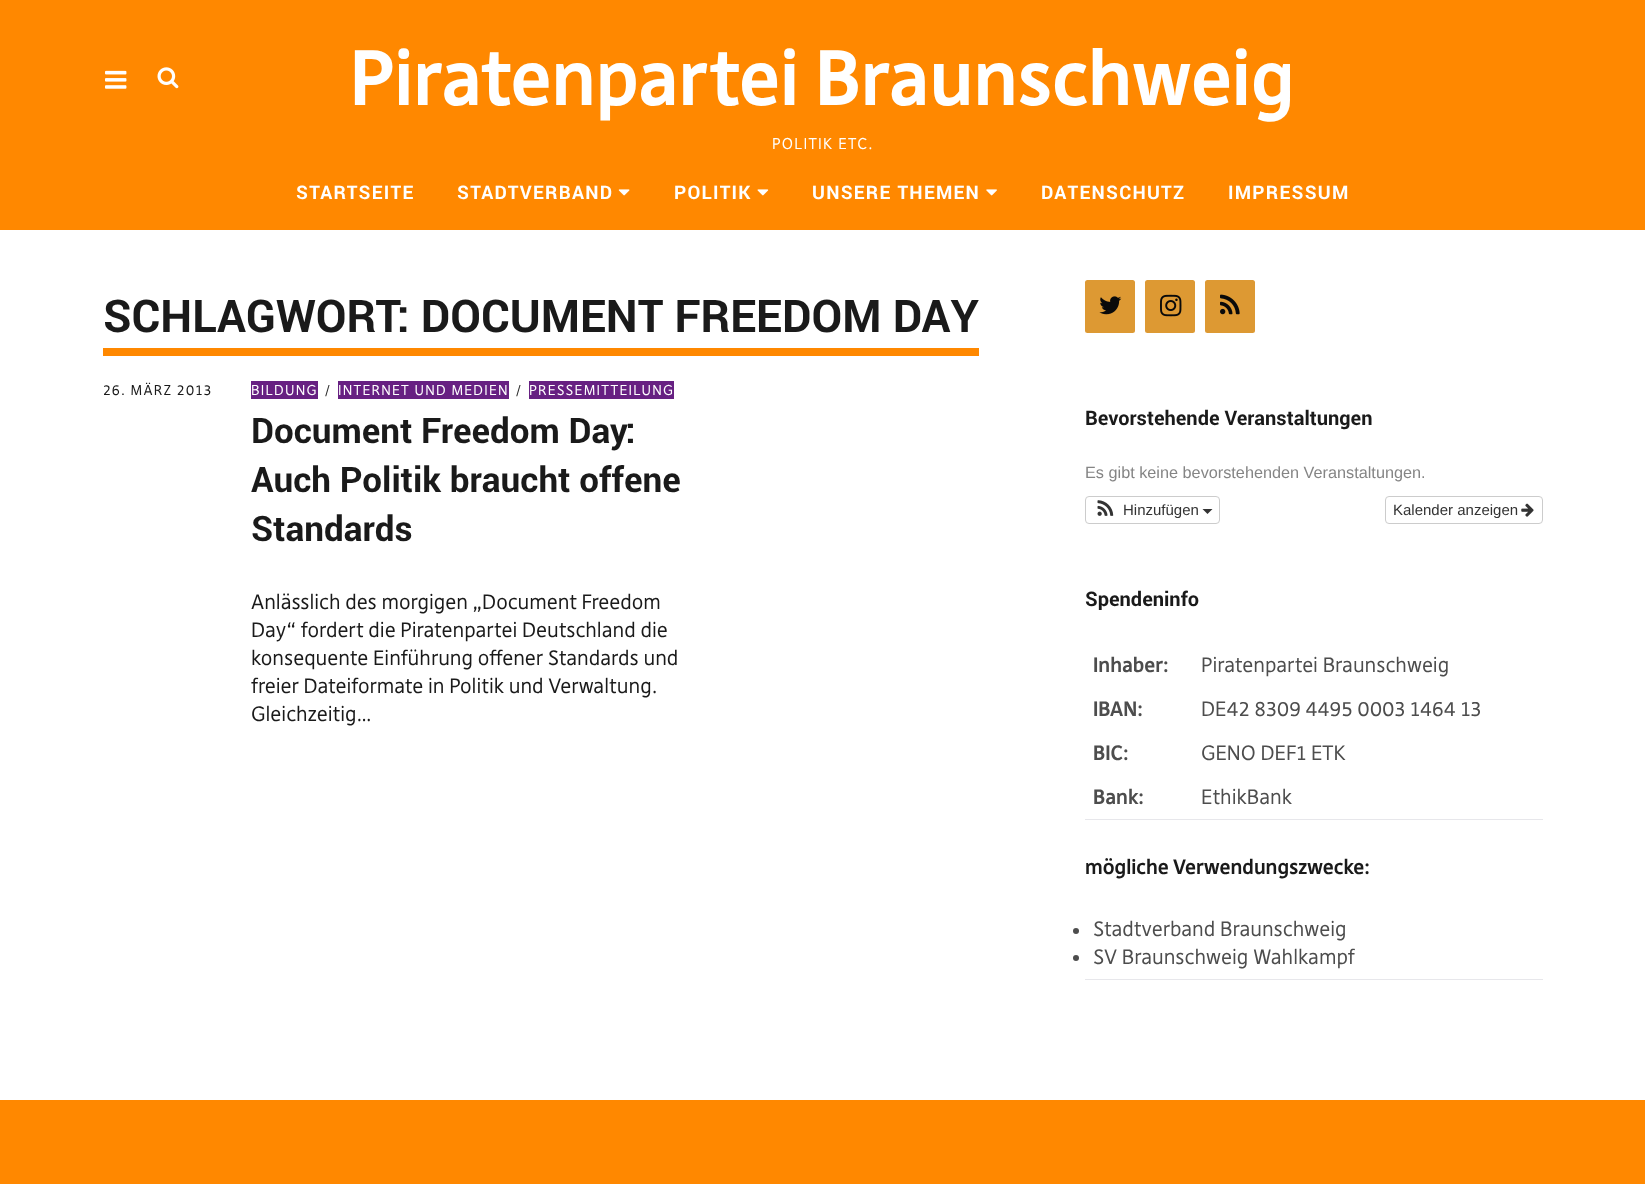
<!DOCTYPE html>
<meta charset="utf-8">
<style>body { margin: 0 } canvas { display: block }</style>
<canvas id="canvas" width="1645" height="1184"></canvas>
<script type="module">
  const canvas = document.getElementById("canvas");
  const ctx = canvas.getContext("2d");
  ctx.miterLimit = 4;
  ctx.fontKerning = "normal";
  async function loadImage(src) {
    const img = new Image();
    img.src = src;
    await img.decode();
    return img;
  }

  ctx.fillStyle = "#ffffff";
  ctx.fillRect(0, 0, 1645, 1184);
  ctx.fillStyle = "#ff8800";
  ctx.fillRect(0, 0, 1645, 230);
  ctx.drawImage(await loadImage("img1.png"), 157, 67, 22, 22);
  ctx.drawImage(await loadImage("img2.png"), 105, 70, 22, 19);
  ctx.font = "bold 75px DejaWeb";
  ctx.fillStyle = "#ffffff";
  ctx.fillText("Piratenpartei Braunschweig", 350, 105);
  ctx.letterSpacing = "1.25px";
  ctx.font = "15px DejaWeb";
  ctx.fillText("POLITIK ETC.", 772, 149);
  ctx.font = "bold 18.75px roboto";
  ctx.fillText("STARTSEITE", 296, 199);
  ctx.fillText("STADTVERBAND", 457, 199);
  ctx.drawImage(await loadImage("img3.png"), 618, 189, 12, 7);
  ctx.fillText("POLITIK", 674, 199);
  ctx.drawImage(await loadImage("img4.png"), 757, 189, 12, 7);
  ctx.fillText("UNSERE THEMEN", 812, 199);
  ctx.drawImage(await loadImage("img5.png"), 986, 189, 11, 7);
  ctx.fillText("DATENSCHUTZ", 1041, 199);
  ctx.fillText("IMPRESSUM", 1228, 199);
  ctx.fillStyle = "#ff8800";
  ctx.fillRect(103, 348, 876, 8);
  ctx.letterSpacing = "0px";
  ctx.font = "bold 45px roboto";
  ctx.fillStyle = "#1a1a1a";
  ctx.fillText("SCHLAGWORT: DOCUMENT FREEDOM DAY", 103, 332);
  ctx.letterSpacing = "1.25px";
  ctx.font = "13.75px DejaWeb";
  ctx.fillText("26. MÄRZ 2013", 103, 395);
  ctx.fillStyle = "#672082";
  ctx.fillRect(251, 381, 67, 18);
  ctx.fillStyle = "#ffffff";
  ctx.fillText("BILDUNG", 251, 395);
  ctx.fillStyle = "#2b2b2b";
  ctx.fillText("/", 325, 395);
  ctx.fillStyle = "#672082";
  ctx.fillRect(338, 381, 171, 18);
  ctx.fillStyle = "#ffffff";
  ctx.fillText("INTERNET UND MEDIEN", 338, 395);
  ctx.fillStyle = "#2b2b2b";
  ctx.fillText("/", 516, 395);
  ctx.fillStyle = "#672082";
  ctx.fillRect(529, 381, 145, 18);
  ctx.fillStyle = "#ffffff";
  ctx.fillText("PRESSEMITTEILUNG", 529, 395);
  ctx.letterSpacing = "0px";
  ctx.font = "bold 35px roboto";
  ctx.fillStyle = "#1a1a1a";
  ctx.fillText("Document Freedom Day:", 251, 443);
  ctx.fillText("Auch Politik braucht offene", 251, 492);
  ctx.fillText("Standards", 251, 541);
  ctx.font = "20px DejaWeb";
  ctx.fillText("Anlässlich des morgigen „Document Freedom", 251, 609);
  ctx.fillText("Day“ fordert die Piratenpartei Deutschland die", 251, 637);
  ctx.fillText("konsequente Einführung offener Standards und", 251, 665);
  ctx.fillText("freier Dateiformate in Politik und Verwaltung.", 251, 693);
  ctx.fillText("Gleichzeitig…", 251, 721);
  ctx.fillStyle = "#dd9933";
  ctx.beginPath();
  ctx.roundRect(1085, 280, 50, 53, 2.5);
  ctx.fill();
  ctx.drawImage(await loadImage("img6.png"), 1099, 296, 23, 19);
  ctx.beginPath();
  ctx.roundRect(1145, 280, 50, 53, 2.5);
  ctx.fill();
  ctx.drawImage(await loadImage("img7.png"), 1160, 294, 22, 23);
  ctx.beginPath();
  ctx.roundRect(1205, 280, 50, 53, 2.5);
  ctx.fill();
  ctx.drawImage(await loadImage("img8.png"), 1220, 294, 20, 21);
  ctx.font = "bold 20px roboto";
  ctx.fillStyle = "#1a1a1a";
  ctx.fillText("Bevorstehende Veranstaltungen", 1085, 425);
  ctx.font = "16.25px Liberation Sans";
  ctx.fillStyle = "#858585";
  ctx.fillText("Es gibt keine bevorstehenden Veranstaltungen.", 1085, 478);
  ctx.beginPath();
  ctx.roundRect(1085.5, 496.5, 134, 27, 3.5);
  ctx.strokeStyle = "#cccccc";
  ctx.stroke();
  ctx.drawImage(await loadImage("img9.png"), 1097, 500, 17, 16);
  ctx.font = "15px Liberation Sans";
  ctx.fillStyle = "#333333";
  ctx.fillText("Hinzufügen", 1123, 515);
  ctx.beginPath();
  ctx.moveTo(1202.5, 509);
  ctx.lineTo(1212.5, 509);
  ctx.lineTo(1207.5, 514);
  ctx.closePath();
  ctx.fill();
  ctx.beginPath();
  ctx.roundRect(1385.5, 496.5, 157, 27, 3.5);
  ctx.stroke();
  ctx.fillText("Kalender anzeigen", 1393, 515);
  ctx.drawImage(await loadImage("img10.png"), 1521, 503, 13, 14);
  ctx.font = "bold 20px roboto";
  ctx.fillStyle = "#1a1a1a";
  ctx.fillText("Spendeninfo", 1085, 606);
  ctx.fillStyle = "#e7e7eb";
  ctx.fillRect(1085, 819, 458, 1);
  ctx.font = "bold 20px DejaWeb";
  ctx.fillStyle = "#4d4d4d";
  ctx.fillText("Inhaber:", 1093, 672);
  ctx.font = "20px DejaWeb";
  ctx.fillText("Piratenpartei Braunschweig", 1201, 672);
  ctx.font = "bold 20px DejaWeb";
  ctx.fillText("IBAN:", 1093, 716);
  ctx.font = "20px DejaWeb";
  ctx.fillText("DE42 8309 4495 0003 1464 13", 1201, 716);
  ctx.font = "bold 20px DejaWeb";
  ctx.fillText("BIC:", 1093, 760);
  ctx.font = "20px DejaWeb";
  ctx.fillText("GENO DEF1 ETK", 1201, 760);
  ctx.font = "bold 20px DejaWeb";
  ctx.fillText("Bank:", 1093, 804);
  ctx.font = "20px DejaWeb";
  ctx.fillText("EthikBank", 1201, 804);
  ctx.font = "bold 20px DejaWeb";
  ctx.fillStyle = "#1a1a1a";
  ctx.fillText("mögliche Verwendungszwecke:", 1085, 874);
  ctx.fillStyle = "#e7e7eb";
  ctx.fillRect(1085, 979, 458, 1);
  ctx.fillStyle = "#4d4d4d";
  ctx.beginPath();
  ctx.arc(1076, 931, 3, 0, Math.PI * 2);
  ctx.fill();
  ctx.font = "20px DejaWeb";
  ctx.fillText("Stadtverband Braunschweig", 1093, 936);
  ctx.beginPath();
  ctx.arc(1076, 958, 3, 0, Math.PI * 2);
  ctx.fill();
  ctx.fillText("SV Braunschweig Wahlkampf", 1093, 964);
  ctx.fillStyle = "#ff8800";
  ctx.fillRect(0, 1100, 1645, 84);
</script>
